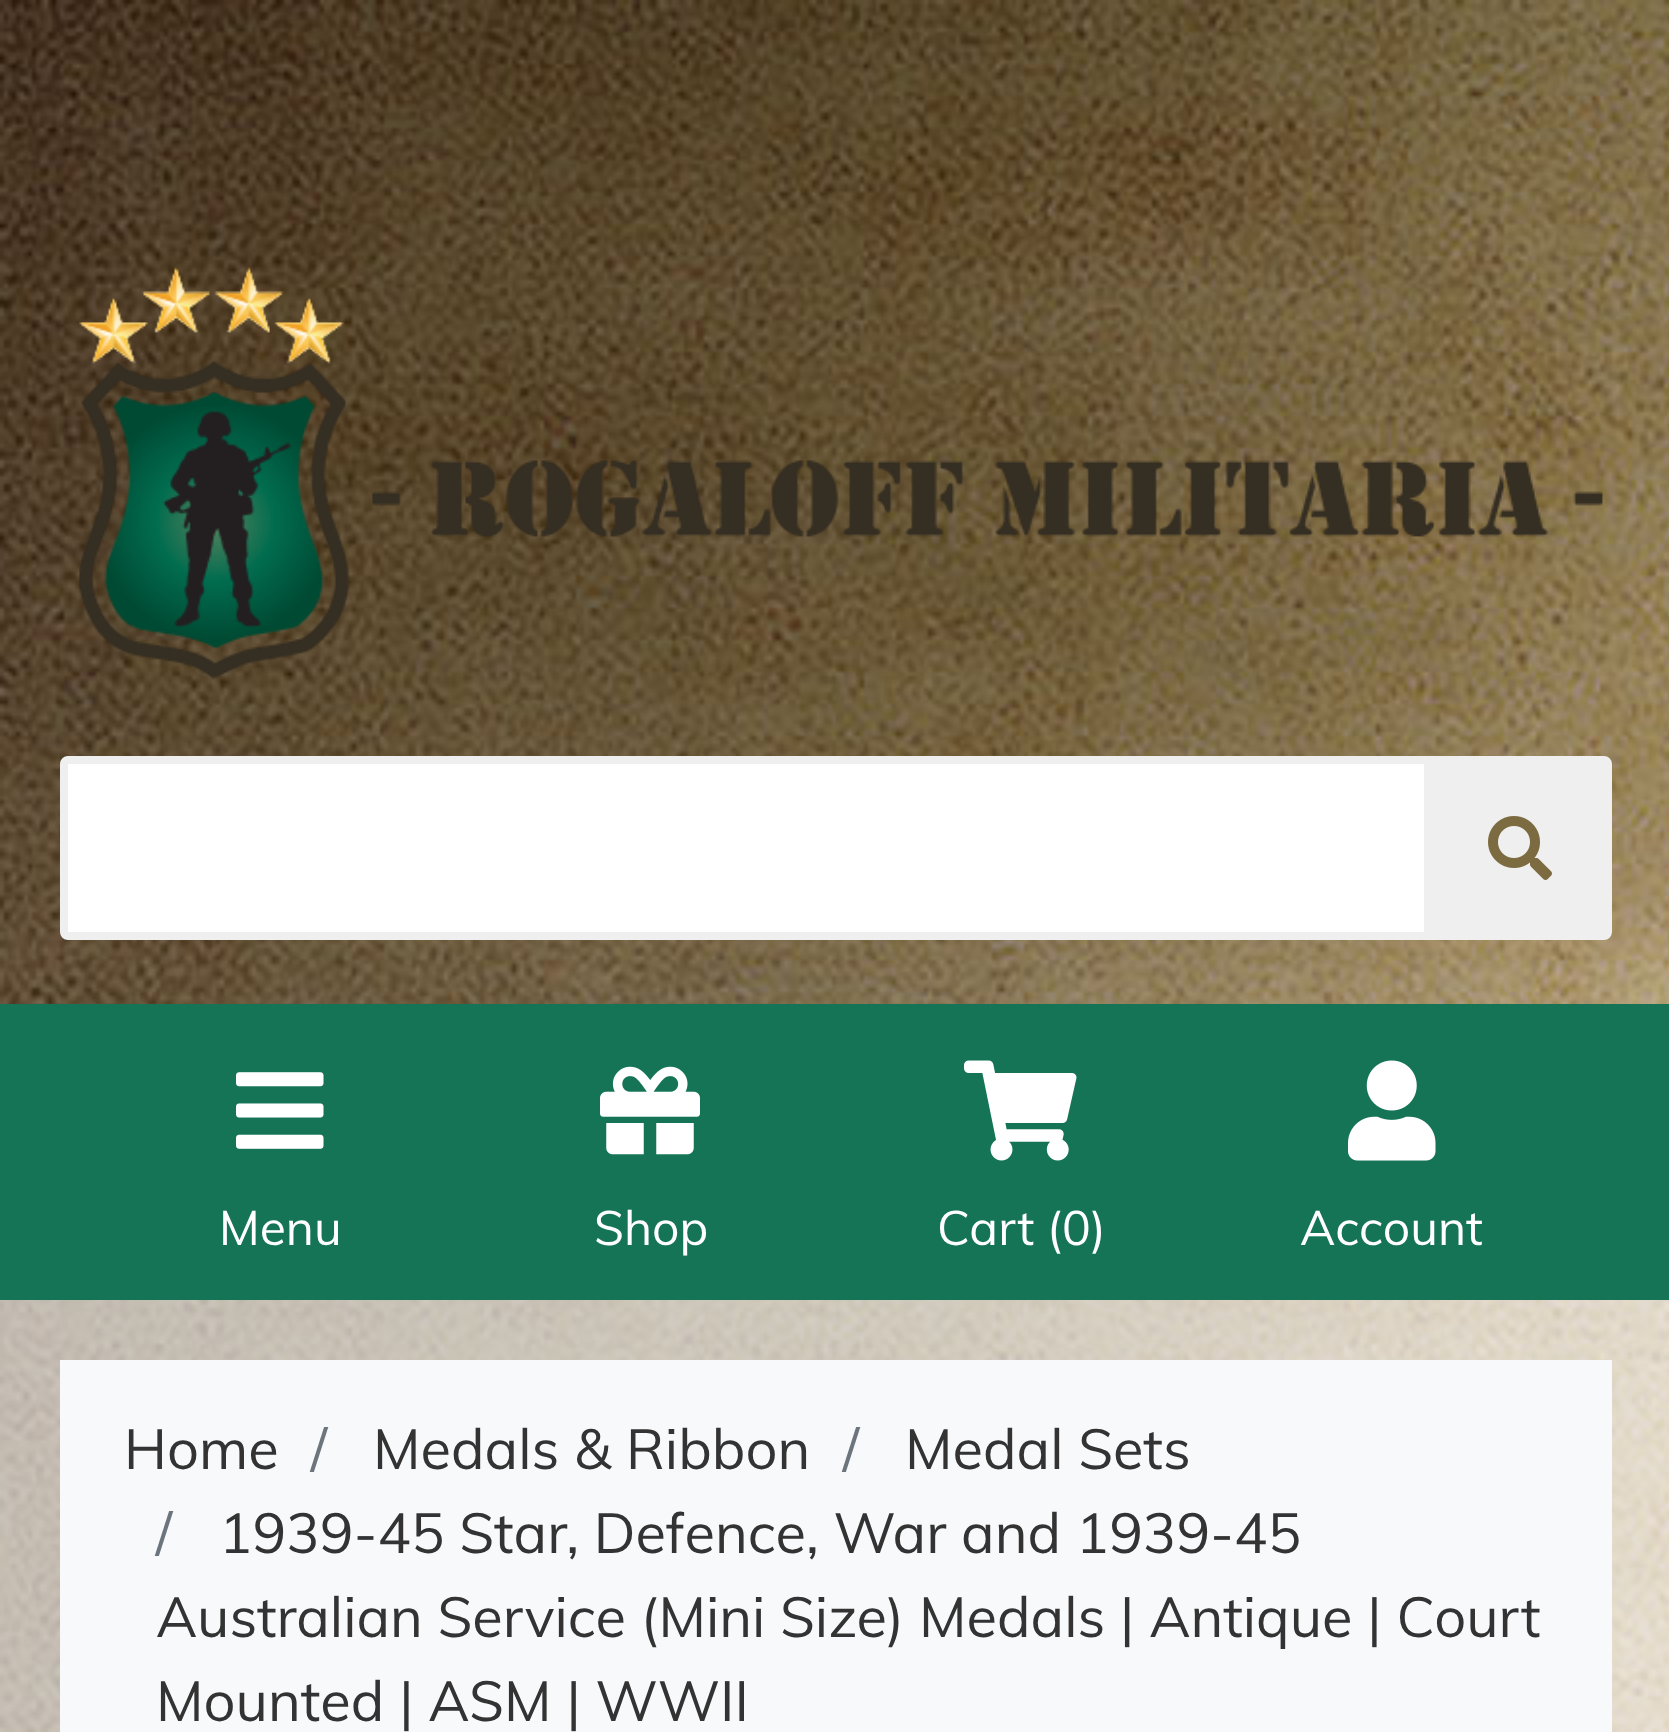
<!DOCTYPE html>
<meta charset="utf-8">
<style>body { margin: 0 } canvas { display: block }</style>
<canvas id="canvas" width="1669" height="1732"></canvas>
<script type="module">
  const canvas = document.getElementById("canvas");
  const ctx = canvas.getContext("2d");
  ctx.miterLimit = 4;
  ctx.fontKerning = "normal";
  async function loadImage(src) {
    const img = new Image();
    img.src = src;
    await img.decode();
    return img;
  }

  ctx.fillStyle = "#ffffff";
  ctx.fillRect(0, 0, 1669, 1732);
  ctx.drawImage(await loadImage("img1.png"), 0, 0, 1669, 1732);
  ctx.drawImage(await loadImage("img2.png"), 79, 267, 1524, 412);
  ctx.beginPath();
  ctx.roundRect(64, 760, 1364, 176, [4, 0, 0, 4]);
  ctx.fill();
  ctx.strokeStyle = "#efefef";
  ctx.lineWidth = 8;
  ctx.stroke();
  ctx.fillStyle = "#efefef";
  ctx.beginPath();
  ctx.roundRect(1430, 758, 180, 180, [0, 6, 6, 0]);
  ctx.fill();
  ctx.lineWidth = 4;
  ctx.stroke();
  ctx.drawImage(await loadImage("img3.png"), 1488, 816, 64, 64);
  ctx.fillStyle = "#157456";
  ctx.fillRect(0, 1004, 1669, 296);
  ctx.drawImage(await loadImage("img4.png"), 236, 1072, 88, 77);
  ctx.font = "48px Muli";
  ctx.fillStyle = "#ffffff";
  ctx.fillText("Menu", 219, 1245);
  ctx.drawImage(await loadImage("img5.png"), 600, 1066, 100, 89);
  ctx.fillText("Shop", 594, 1245);
  ctx.drawImage(await loadImage("img6.png"), 964, 1060, 113, 101);
  ctx.fillText("Cart (0)", 937, 1245);
  ctx.drawImage(await loadImage("img7.png"), 1348, 1060, 88, 101);
  ctx.fillText("Account", 1300, 1245);
  ctx.fillStyle = "rgba(255, 255, 255, 0.6)";
  ctx.fillRect(0, 1300, 1669, 432);
  ctx.fillStyle = "#f8f9fa";
  ctx.fillRect(60, 1360, 1552, 372);
  ctx.font = "56px Muli";
  ctx.fillStyle = "#333333";
  ctx.fillText("Home", 124, 1469);
  ctx.fillStyle = "#6c757d";
  ctx.fillText("/", 311, 1469);
  ctx.fillStyle = "#333333";
  ctx.fillText("Medals & Ribbon", 373, 1469);
  ctx.fillStyle = "#6c757d";
  ctx.fillText("/", 843, 1469);
  ctx.fillStyle = "#333333";
  ctx.fillText("Medal Sets", 905, 1469);
  ctx.fillStyle = "#6c757d";
  ctx.fillText("/", 156, 1553);
  ctx.fillStyle = "#333333";
  ctx.fillText("1939-45 Star, Defence, War and 1939-45", 219, 1553);
  ctx.fillText("Australian Service (Mini Size) Medals | Antique | Court", 156, 1637);
  ctx.fillText("Mounted | ASM | WWII", 156, 1721);
</script>
